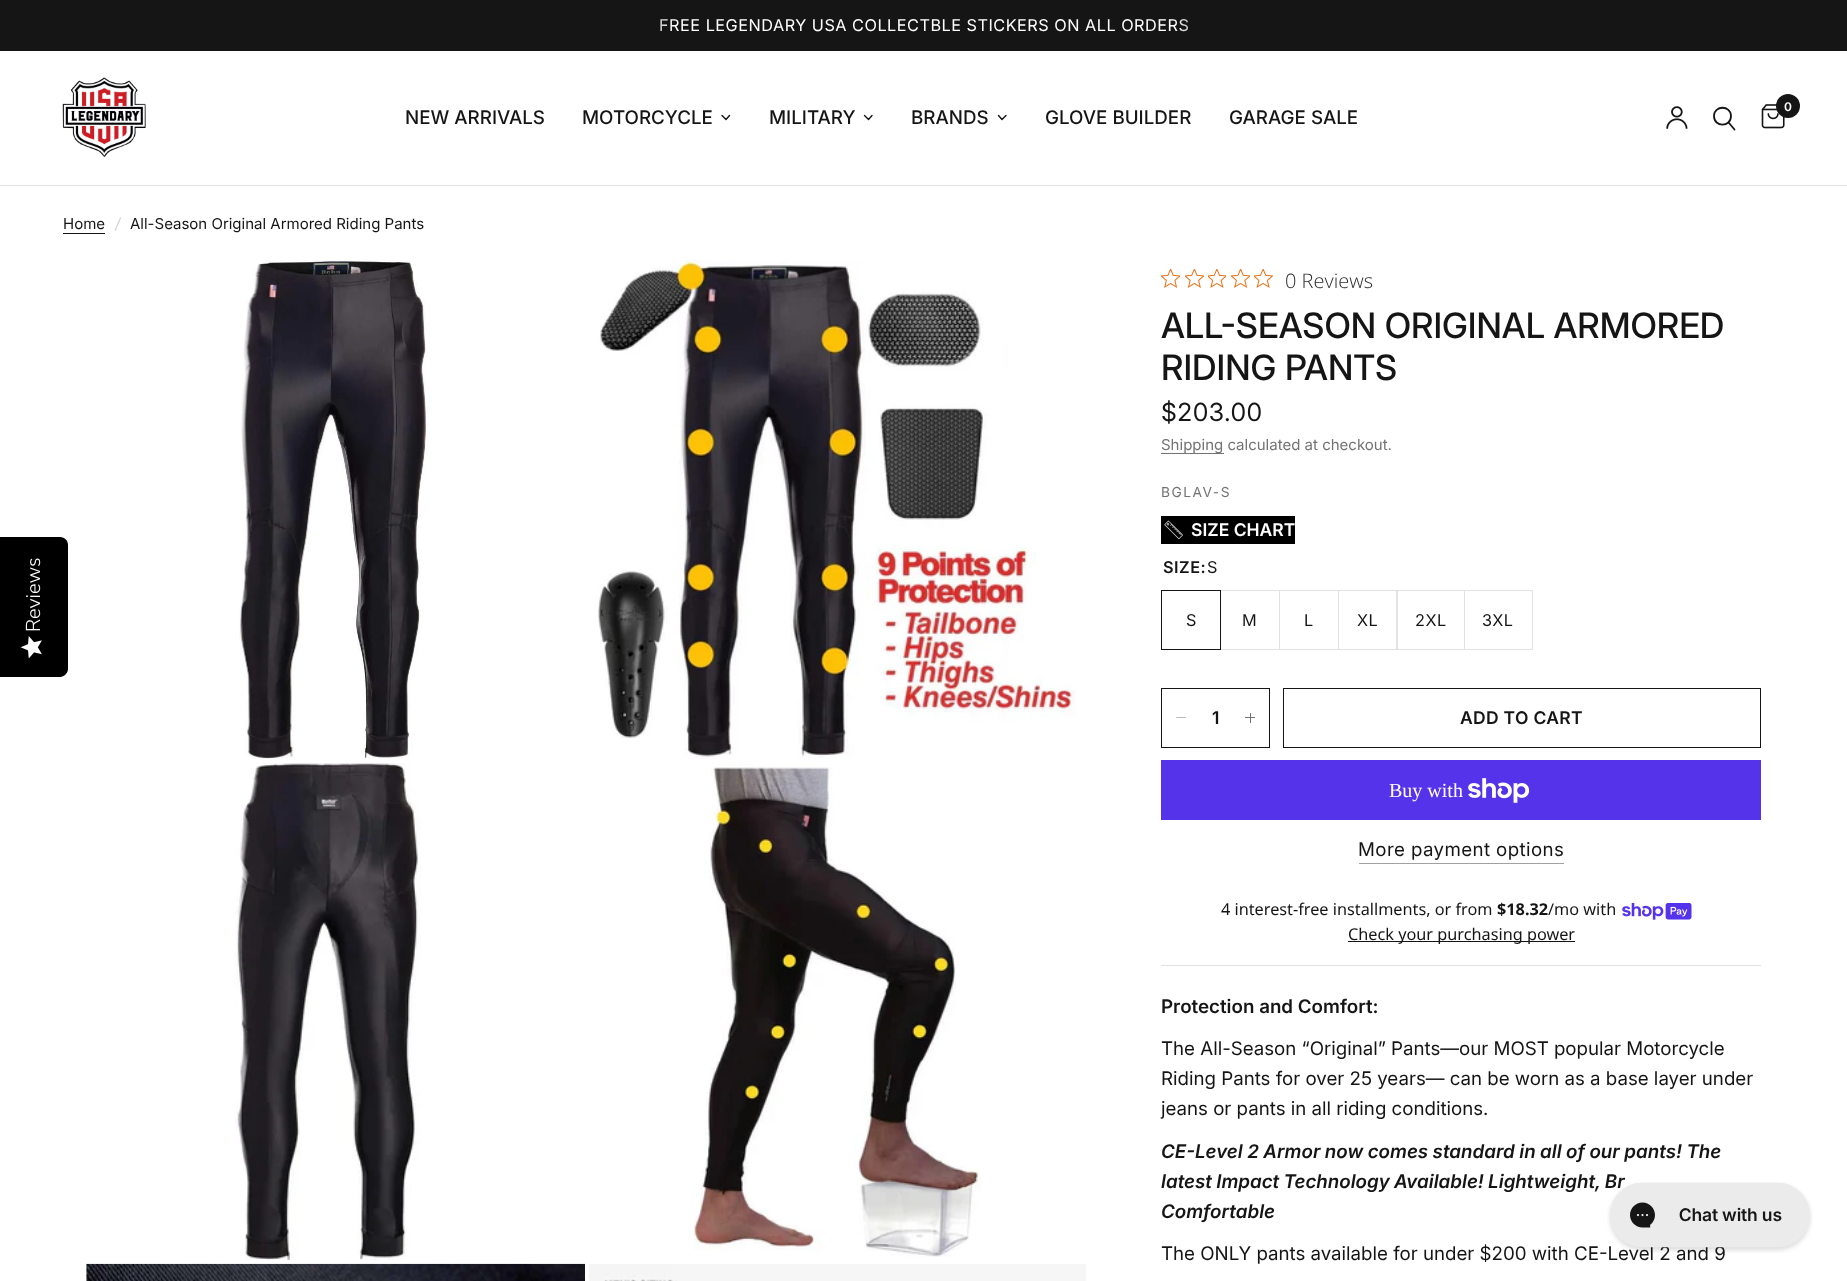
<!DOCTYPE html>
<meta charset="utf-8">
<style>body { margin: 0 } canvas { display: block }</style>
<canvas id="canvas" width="1847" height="1281"></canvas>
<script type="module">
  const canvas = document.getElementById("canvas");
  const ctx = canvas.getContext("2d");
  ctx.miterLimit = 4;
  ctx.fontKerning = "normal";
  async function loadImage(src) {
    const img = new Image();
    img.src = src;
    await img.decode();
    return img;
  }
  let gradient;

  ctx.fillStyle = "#ffffff";
  ctx.fillRect(0, 0, 1847, 1281);
  ctx.fillStyle = "#000000";
  ctx.beginPath();
  ctx.moveTo(0, 677);
  ctx.lineTo(0, 537);
  ctx.lineTo(60, 537);
  ctx.bezierCurveTo(64, 537, 68, 540, 68, 545);
  ctx.lineTo(68, 669);
  ctx.bezierCurveTo(68, 673, 64, 677, 60, 677);
  ctx.closePath();
  ctx.fill();
  ctx.font = "300 20px Nunito Sans";
  ctx.fillStyle = "#ffffff";
  ctx.save();
  ctx.translate(40, 632);
  ctx.rotate(-90 * Math.PI / 180);
  ctx.fillText("Reviews", 0, 0);
  ctx.restore();
  ctx.drawImage(await loadImage("img1.png"), 20, 636, 22, 23);
  ctx.fillStyle = "#151515";
  ctx.fillRect(0, 0, 1847, 51);
  ctx.letterSpacing = "0.5px";
  ctx.font = "16.25px Inter";
  ctx.fillStyle = "#ffffff";
  ctx.fillText("FREE LEGENDARY USA COLLECTBLE STICKERS ON ALL ORDERS", 659, 31);
  gradient = ctx.createLinearGradient(674, 26, 611, 26);
  gradient.addColorStop(0, "rgba(21, 21, 21, 0)");
  gradient.addColorStop(1, "#151515");
  ctx.fillStyle = gradient;
  ctx.fillRect(660, 19, 13, 12);
  gradient = ctx.createLinearGradient(1174, 26, 1236, 26);
  gradient.addColorStop(0, "rgba(21, 21, 21, 0)");
  gradient.addColorStop(1, "#151515");
  ctx.fillStyle = gradient;
  ctx.fillRect(1175, 19, 13, 13);
  ctx.fillStyle = "#e2e2e2";
  ctx.fillRect(0, 185, 1847, 1);
  ctx.drawImage(await loadImage("img2.png"), 62, 77, 84, 80);
  ctx.drawImage(await loadImage("img3.png"), 1666, 106, 22, 23);
  ctx.beginPath();
  ctx.moveTo(1729, 123);
  ctx.lineTo(1734.5, 129.5);
  ctx.moveTo(1731, 116);
  ctx.bezierCurveTo(1731, 127.5, 1714, 127.5, 1714, 116);
  ctx.bezierCurveTo(1714, 105, 1731, 105, 1731, 116);
  ctx.closePath();
  ctx.strokeStyle = "#151515";
  ctx.lineWidth = 1.8;
  ctx.lineCap = "round";
  ctx.lineJoin = "round";
  ctx.stroke();
  ctx.drawImage(await loadImage("img4.png"), 1761, 104, 24, 25);
  ctx.fillStyle = "#151515";
  ctx.beginPath();
  ctx.arc(1788, 106, 12, 0, Math.PI * 2);
  ctx.fill();
  ctx.letterSpacing = "0px";
  ctx.font = "600 12px Inter";
  ctx.fillStyle = "#ffffff";
  ctx.fillText("0", 1784, 111);
  ctx.font = "500 18.75px 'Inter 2'";
  ctx.fillStyle = "#151515";
  ctx.fillText("NEW ARRIVALS", 405, 124);
  ctx.fillText("MOTORCYCLE", 582, 124);
  ctx.beginPath();
  ctx.moveTo(729.5, 115.5);
  ctx.lineTo(726, 119.5);
  ctx.lineTo(722, 115.5);
  ctx.lineWidth = 1.4;
  ctx.stroke();
  ctx.fillText("MILITARY", 769, 124);
  ctx.beginPath();
  ctx.moveTo(872, 115.5);
  ctx.lineTo(868.5, 119.5);
  ctx.lineTo(864.5, 115.5);
  ctx.stroke();
  ctx.fillText("BRANDS", 911, 124);
  ctx.beginPath();
  ctx.moveTo(1006, 115.5);
  ctx.lineTo(1002, 119.5);
  ctx.lineTo(998.5, 115.5);
  ctx.stroke();
  ctx.fillText("GLOVE BUILDER", 1045, 124);
  ctx.fillText("GARAGE SALE", 1229, 124);
  ctx.font = "15px Inter";
  ctx.fillText("Home", 63, 229);
  ctx.fillRect(63, 233, 42, 1);
  ctx.font = "italic 15px Inter";
  ctx.fillStyle = "#d0d0d0";
  ctx.fillText("/", 115, 229);
  ctx.font = "15px Inter";
  ctx.fillStyle = "#151515";
  ctx.fillText("All-Season Original Armored Riding Pants", 130, 229);
  ctx.drawImage(await loadImage("img5.png"), 239, 260, 190, 499);
  ctx.drawImage(await loadImage("img6.png"), 598, 260, 478, 499);
  ctx.drawImage(await loadImage("img7.png"), 235, 763, 186, 497);
  ctx.drawImage(await loadImage("img8.png"), 693, 763, 288, 494);
  ctx.drawImage(await loadImage("img9.png"), 86, 1263, 499, 18);
  ctx.drawImage(await loadImage("img10.png"), 589, 1264, 497, 17);
  ctx.drawImage(await loadImage("img11.png"), 1161, 269, 19, 19);
  ctx.drawImage(await loadImage("img12.png"), 1185, 269, 19, 19);
  ctx.drawImage(await loadImage("img13.png"), 1208, 269, 18, 19);
  ctx.drawImage(await loadImage("img11.png"), 1231, 269, 19, 19);
  ctx.drawImage(await loadImage("img14.png"), 1254, 269, 19, 19);
  ctx.font = "300 20px Open Sans";
  ctx.fillStyle = "#2c2c2c";
  ctx.fillText("0 Reviews", 1285, 288);
  ctx.font = "500 35px Inter";
  ctx.fillStyle = "#151515";
  ctx.fillText("ALL-SEASON ORIGINAL ARMORED", 1161, 338);
  ctx.fillText("RIDING PANTS", 1161, 380);
  ctx.letterSpacing = "0.5px";
  ctx.font = "25px 'Inter 2'";
  ctx.fillText("$203.00", 1161, 421);
  ctx.fillStyle = "#737373";
  ctx.fillRect(1161, 453, 63, 1);
  ctx.letterSpacing = "0px";
  ctx.font = "15px Inter";
  ctx.fillText("Shipping calculated at checkout.", 1161, 450);
  ctx.letterSpacing = "1.5px";
  ctx.font = "13.75px Inter";
  ctx.fillText("BGLAV-S", 1161, 497);
  ctx.fillStyle = "#000000";
  ctx.fillRect(1161, 516, 134, 28);
  ctx.drawImage(await loadImage("img15.png"), 1164, 520, 19, 20);
  ctx.letterSpacing = "0px";
  ctx.font = "600 17.5px Inter";
  ctx.fillStyle = "#ffffff";
  ctx.fillText("SIZE CHART", 1191, 536);
  ctx.letterSpacing = "0.5px";
  ctx.font = "600 16.25px Inter";
  ctx.fillStyle = "#151515";
  ctx.fillText("SIZE:", 1163, 573);
  ctx.font = "16.25px Inter";
  ctx.fillText("S", 1207, 573);
  ctx.strokeStyle = "#e2e2e2";
  ctx.lineWidth = 1;
  ctx.lineJoin = "miter";
  ctx.strokeRect(1220.5, 590.5, 59, 59);
  ctx.strokeStyle = "#151515";
  ctx.strokeRect(1161.5, 590.5, 59, 59);
  ctx.fillText("S", 1186, 626);
  ctx.fillText("M", 1242, 626);
  ctx.strokeStyle = "#e2e2e2";
  ctx.strokeRect(1279.5, 590.5, 59, 59);
  ctx.fillText("L", 1304, 626);
  ctx.strokeRect(1338.5, 590.5, 59, 59);
  ctx.fillText("XL", 1357, 626);
  ctx.strokeRect(1396.5, 590.5, 68, 59);
  ctx.fillText("2XL", 1415, 626);
  ctx.strokeRect(1464.5, 590.5, 68, 59);
  ctx.fillText("3XL", 1482, 626);
  ctx.strokeStyle = "#151515";
  ctx.strokeRect(1161.5, 688.5, 108, 59);
  ctx.fillStyle = "#b9b9b9";
  ctx.beginPath();
  ctx.moveTo(1176.5, 718);
  ctx.lineTo(1176, 717);
  ctx.lineTo(1186, 717);
  ctx.lineTo(1186, 718);
  ctx.closePath();
  ctx.fill();
  ctx.letterSpacing = "0px";
  ctx.font = "600 17.5px Inter";
  ctx.fillStyle = "#151515";
  ctx.fillText("1", 1212, 724);
  ctx.fillStyle = "#737373";
  ctx.fillRect(1250, 713, 1, 10);
  ctx.fillRect(1245, 717, 10, 1);
  ctx.strokeRect(1283.5, 688.5, 477, 59);
  ctx.letterSpacing = "0.3px";
  ctx.fillStyle = "#151515";
  ctx.fillText("ADD TO CART", 1460, 724);
  ctx.fillStyle = "#5433eb";
  ctx.fillRect(1161, 760, 600, 60);
  ctx.letterSpacing = "0px";
  ctx.font = "20px Liberation Serif";
  ctx.fillStyle = "#ffffff";
  ctx.fillText("Buy with", 1389, 797);
  ctx.drawImage(await loadImage("img16.png"), 1468, 778, 62, 25);
  ctx.letterSpacing = "0.4px";
  ctx.font = "18.75px 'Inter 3'";
  ctx.fillStyle = "#151515";
  ctx.fillText("More payment options", 1358, 856);
  ctx.fillStyle = "#a1a1a1";
  ctx.fillRect(1359, 863, 205, 1);
  ctx.fillStyle = "#e2e2e2";
  ctx.fillRect(1161, 965, 600, 1);
  ctx.letterSpacing = "0px";
  ctx.font = "16.25px Noto Sans";
  ctx.fillStyle = "#151515";
  ctx.fillText("4 interest-free installments, or from", 1221, 915);
  ctx.font = "bold 16.25px Noto Sans";
  ctx.fillText("$18.32", 1497, 915);
  ctx.font = "16.25px Noto Sans";
  ctx.fillText("/mo with", 1548, 915);
  ctx.drawImage(await loadImage("img17.png"), 1622, 903, 70, 17);
  ctx.fillRect(1348, 941, 227, 1);
  ctx.fillText("Check your purchasing power", 1348, 940);
  ctx.font = "600 18.75px Inter";
  ctx.fillText("Protection and Comfort:", 1161, 1013);
  ctx.font = "18.75px 'Inter 3'";
  ctx.fillText("The All-Season “Original” Pants—our MOST popular Motorcycle", 1161, 1055);
  ctx.fillText("Riding Pants for over 25 years— can be worn as a base layer under", 1161, 1085);
  ctx.fillText("jeans or pants in all riding conditions.", 1161, 1115);
  ctx.wordSpacing = "-0.25px";
  ctx.font = "italic 600 18.75px Inter";
  ctx.fillText("CE-Level 2 Armor now comes standard in all of our pants! The", 1161, 1158);
  ctx.wordSpacing = "-0.5px";
  ctx.fillText("latest Impact Technology Available! Lightweight, Br", 1161, 1188);
  ctx.wordSpacing = "0px";
  ctx.fillText("Comfortable", 1161, 1218);
  ctx.font = "18.75px 'Inter 3'";
  ctx.fillText("The ONLY pants available for under $200 with CE-Level 2 and 9", 1161, 1260);
  ctx.drawImage(await loadImage("img18.png"), 1607, 1182, 206, 71);
</script>
